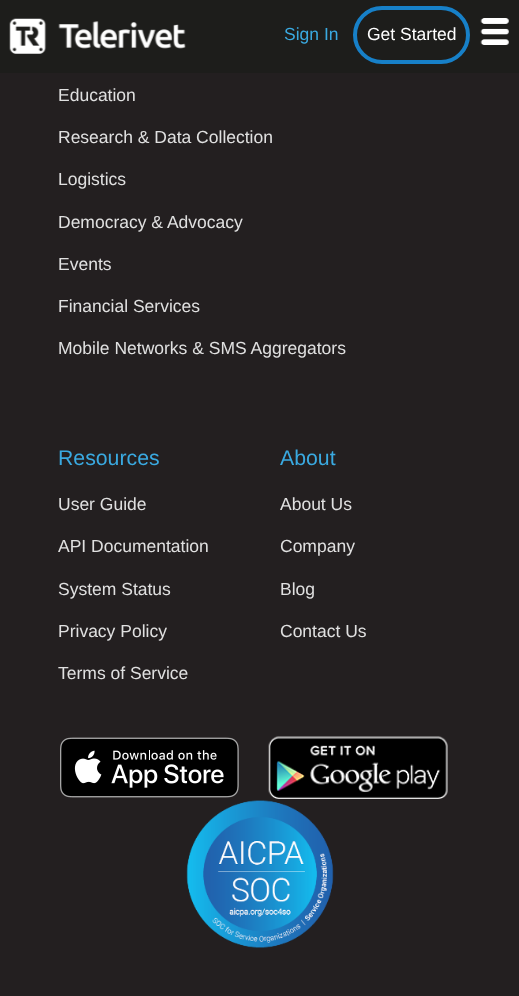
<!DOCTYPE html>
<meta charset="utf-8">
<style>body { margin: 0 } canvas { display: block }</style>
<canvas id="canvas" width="519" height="996"></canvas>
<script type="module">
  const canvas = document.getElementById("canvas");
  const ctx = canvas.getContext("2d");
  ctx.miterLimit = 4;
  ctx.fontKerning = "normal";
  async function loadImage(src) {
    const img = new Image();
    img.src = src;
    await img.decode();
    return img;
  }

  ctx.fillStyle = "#231f20";
  ctx.fillRect(0, 0, 519, 996);
  ctx.fillStyle = "#1d1d1b";
  ctx.fillRect(0, 0, 519, 73);
  ctx.drawImage(await loadImage("img1.png"), 9, 18, 177, 36);
  ctx.font = "17.5px Liberation Sans";
  ctx.fillStyle = "#3aa9e0";
  ctx.fillText("Sign In", 284, 40);
  ctx.beginPath();
  ctx.roundRect(355, 8, 113, 54, 27);
  ctx.strokeStyle = "#1780c8";
  ctx.lineWidth = 4;
  ctx.stroke();
  ctx.fillStyle = "#ffffff";
  ctx.fillText("Get Started", 367, 40);
  ctx.drawImage(await loadImage("img2.png"), 480, 18, 29, 27);
  ctx.fillStyle = "#e0e0e0";
  ctx.fillText("Education", 58, 101);
  ctx.fillText("Research & Data Collection", 58, 143);
  ctx.fillText("Logistics", 58, 185);
  ctx.fillText("Democracy & Advocacy", 58, 228);
  ctx.fillText("Events", 58, 270);
  ctx.fillText("Financial Services", 58, 312);
  ctx.fillText("Mobile Networks & SMS Aggregators", 58, 354);
  ctx.font = "21.25px Liberation Sans";
  ctx.fillStyle = "#3aa9e0";
  ctx.fillText("Resources", 58, 465);
  ctx.font = "17.5px Liberation Sans";
  ctx.fillStyle = "#e0e0e0";
  ctx.fillText("User Guide", 58, 510);
  ctx.fillText("API Documentation", 58, 552);
  ctx.fillText("System Status", 58, 595);
  ctx.fillText("Privacy Policy", 58, 637);
  ctx.fillText("Terms of Service", 58, 679);
  ctx.font = "21.25px Liberation Sans";
  ctx.fillStyle = "#3aa9e0";
  ctx.fillText("About", 280, 465);
  ctx.font = "17.5px Liberation Sans";
  ctx.fillStyle = "#e0e0e0";
  ctx.fillText("About Us", 280, 510);
  ctx.fillText("Company", 280, 552);
  ctx.fillText("Blog", 280, 595);
  ctx.fillText("Contact Us", 280, 637);
  ctx.drawImage(await loadImage("img3.png"), 60, 737, 179, 61);
  ctx.drawImage(await loadImage("img4.png"), 268, 736, 180, 63);
  ctx.drawImage(await loadImage("img5.png"), 186, 800, 148, 148);
</script>
